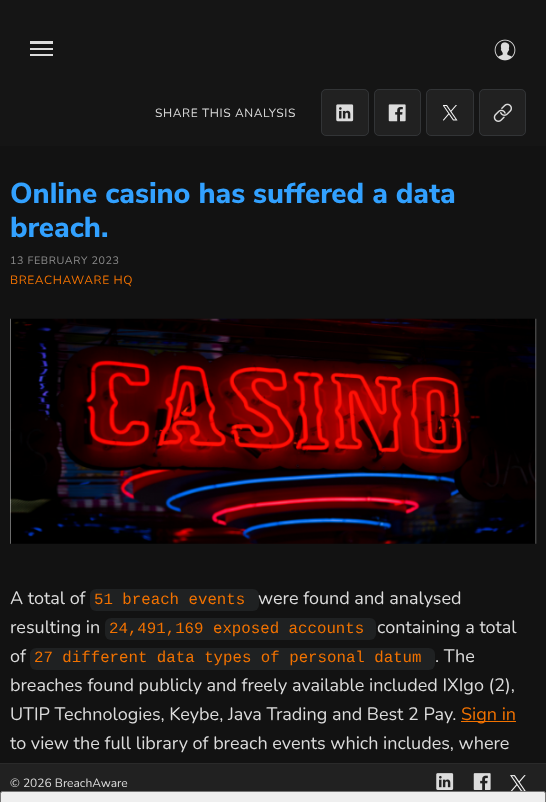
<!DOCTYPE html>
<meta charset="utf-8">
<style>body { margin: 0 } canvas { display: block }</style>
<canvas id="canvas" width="546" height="802"></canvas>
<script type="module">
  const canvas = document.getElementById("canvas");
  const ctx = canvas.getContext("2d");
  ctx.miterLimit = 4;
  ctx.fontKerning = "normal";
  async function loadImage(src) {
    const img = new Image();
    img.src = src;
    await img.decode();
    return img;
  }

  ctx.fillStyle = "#121212";
  ctx.fillRect(0, 0, 546, 802);
  ctx.fillStyle = "#151515";
  ctx.fillRect(0, 0, 546, 146);
  ctx.fillStyle = "#dcdcdc";
  ctx.fillRect(30, 41, 23, 3);
  ctx.fillRect(30, 48, 23, 2);
  ctx.fillRect(30, 54, 23, 2);
  ctx.drawImage(await loadImage("img1.png"), 494, 39, 22, 22);
  ctx.letterSpacing = "0.6px";
  ctx.font = "12px Nunito";
  ctx.fillText("SHARE THIS ANALYSIS", 155, 117);
  ctx.fillStyle = "#212121";
  ctx.beginPath();
  ctx.roundRect(321, 89, 48, 47, 5);
  ctx.fill();
  ctx.beginPath();
  ctx.roundRect(321.5, 89.5, 47, 46, 4.5);
  ctx.strokeStyle = "rgba(120, 130, 140, 0.2)";
  ctx.stroke();
  ctx.drawImage(await loadImage("img2.png"), 336, 104, 18, 18);
  ctx.beginPath();
  ctx.roundRect(374, 89, 47, 47, 5);
  ctx.fill();
  ctx.beginPath();
  ctx.roundRect(374.5, 89.5, 46, 46, 4.5);
  ctx.stroke();
  ctx.drawImage(await loadImage("img3.png"), 388, 104, 18, 18);
  ctx.beginPath();
  ctx.roundRect(426, 89, 48, 47, 5);
  ctx.fill();
  ctx.beginPath();
  ctx.roundRect(426.5, 89.5, 47, 46, 4.5);
  ctx.stroke();
  ctx.drawImage(await loadImage("img4.png"), 443, 105, 15, 16);
  ctx.beginPath();
  ctx.roundRect(479, 89, 47, 47, 5);
  ctx.fill();
  ctx.beginPath();
  ctx.roundRect(479.5, 89.5, 46, 46, 4.5);
  ctx.stroke();
  ctx.drawImage(await loadImage("img5.png"), 493, 103, 19, 19);
  ctx.letterSpacing = "-0.05px";
  ctx.font = "800 28.75px Nunito Sans";
  ctx.fillStyle = "#32a1ff";
  ctx.fillText("Online casino has suffered a data", 10, 203);
  ctx.fillText("breach.", 10, 237);
  ctx.letterSpacing = "0.6px";
  ctx.font = "10.75px Nunito";
  ctx.fillStyle = "#8b8b8b";
  ctx.fillText("13 FEBRUARY 2023", 10, 264);
  ctx.font = "12px Nunito";
  ctx.fillStyle = "#f27200";
  ctx.fillText("BREACHAWARE HQ", 10, 284);
  ctx.drawImage(await loadImage("img6.png"), 10, 318, 527, 226);
  ctx.letterSpacing = "0px";
  ctx.font = "18px Nunito";
  ctx.fillStyle = "#dcdcdc";
  ctx.fillText("A total of", 10, 604);
  ctx.fillStyle = "#1f2122";
  ctx.beginPath();
  ctx.roundRect(90, 589, 169, 22, 6);
  ctx.fill();
  ctx.font = "15.75px Liberation Mono";
  ctx.fillStyle = "#f27200";
  ctx.fillText("51 breach events", 94, 604);
  ctx.font = "18px Nunito";
  ctx.fillStyle = "#dcdcdc";
  ctx.fillText("were found and analysed", 258, 604);
  ctx.fillText("resulting in", 10, 633);
  ctx.fillStyle = "#1f2122";
  ctx.beginPath();
  ctx.roundRect(105, 618, 271, 22, 6);
  ctx.fill();
  ctx.font = "15.75px Liberation Mono";
  ctx.fillStyle = "#f27200";
  ctx.fillText("24,491,169 exposed accounts", 109, 633);
  ctx.font = "18px Nunito";
  ctx.fillStyle = "#dcdcdc";
  ctx.fillText("containing a total", 377, 633);
  ctx.fillText("of", 10, 662);
  ctx.fillStyle = "#1f2122";
  ctx.beginPath();
  ctx.roundRect(30, 648, 405, 22, 6);
  ctx.fill();
  ctx.font = "15.75px Liberation Mono";
  ctx.fillStyle = "#f27200";
  ctx.fillText("27 different data types of personal datum", 34, 662);
  ctx.font = "18px Nunito";
  ctx.fillStyle = "#dcdcdc";
  ctx.fillText(". The", 435, 662);
  ctx.fillText("breaches found publicly and freely available included IXIgo (2),", 10, 691);
  ctx.fillText("UTIP Technologies, Keybe, Java Trading and Best 2 Pay.", 10, 720);
  ctx.fillStyle = "#f27200";
  ctx.fillRect(461, 721, 55, 1);
  ctx.fillText("Sign in", 461, 720);
  ctx.fillStyle = "#dcdcdc";
  ctx.fillText("to view the full library of breach events which includes, where", 10, 749);
  ctx.fillStyle = "#212121";
  ctx.fillRect(0, 764, 546, 30);
  ctx.fillStyle = "#2a2a2a";
  ctx.fillRect(0, 763, 546, 1);
  ctx.font = "12px Nunito";
  ctx.fillStyle = "#dcdcdc";
  ctx.fillText("© 2026 BreachAware", 10, 787);
  ctx.drawImage(await loadImage("img7.png"), 436, 773, 18, 17);
  ctx.drawImage(await loadImage("img8.png"), 473, 773, 18, 17);
  ctx.drawImage(await loadImage("img9.png"), 510, 775, 16, 16);
  ctx.fillStyle = "#efefef";
  ctx.beginPath();
  ctx.roundRect(0.5, 791.5, 545, 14, 2);
  ctx.fill();
  ctx.strokeStyle = "#767676";
  ctx.stroke();
</script>
